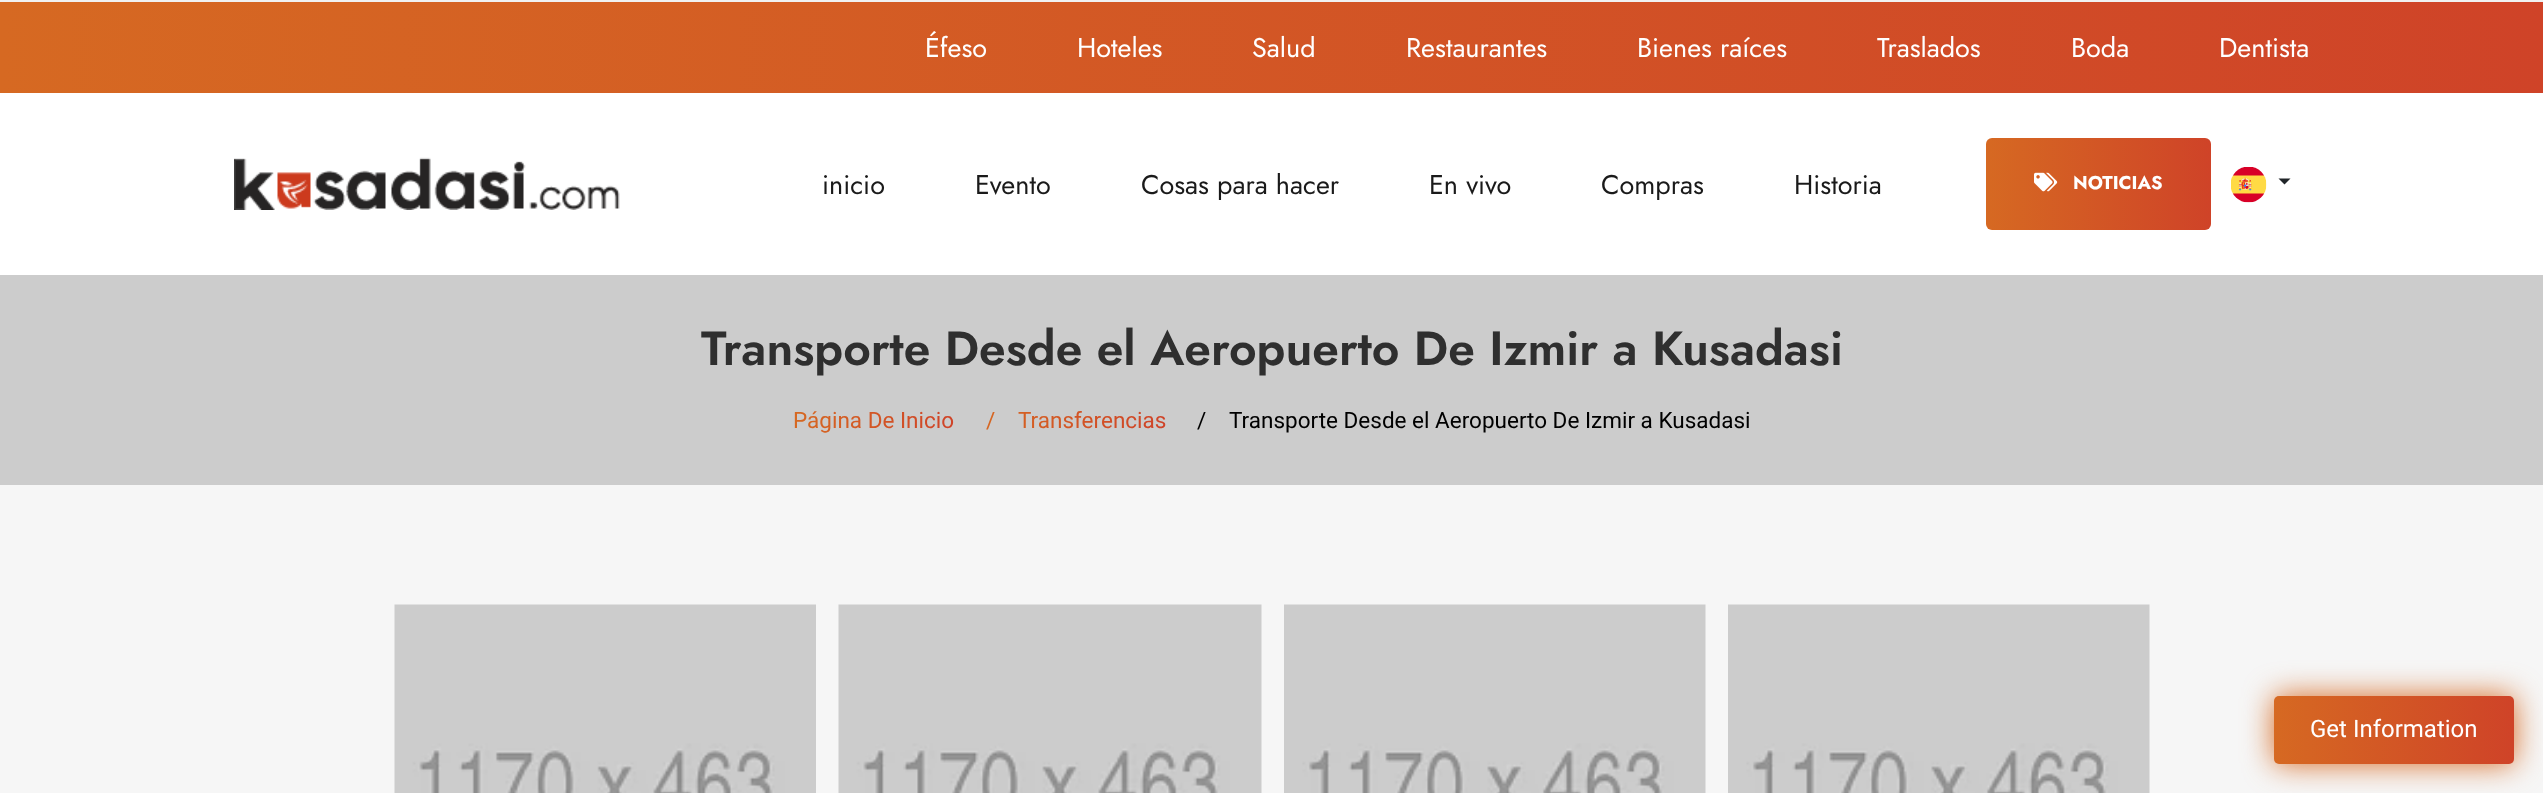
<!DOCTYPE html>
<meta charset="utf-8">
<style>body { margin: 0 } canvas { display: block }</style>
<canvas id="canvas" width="2543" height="793"></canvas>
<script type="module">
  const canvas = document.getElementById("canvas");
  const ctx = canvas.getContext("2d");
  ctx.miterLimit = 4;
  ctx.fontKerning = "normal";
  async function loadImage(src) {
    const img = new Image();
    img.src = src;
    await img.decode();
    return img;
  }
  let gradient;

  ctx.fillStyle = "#ffffff";
  ctx.fillRect(0, 0, 2543, 793);
  gradient = ctx.createLinearGradient(0, 1.5, 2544, 1.5);
  gradient.addColorStop(0, "#d66922");
  gradient.addColorStop(1, "#cf4328");
  ctx.fillStyle = gradient;
  ctx.fillRect(0, 2, 2543, 91);
  ctx.fillStyle = "#f1f1f1";
  ctx.fillRect(0, 0, 2543, 2);
  ctx.font = "27px Jost";
  ctx.fillStyle = "#ffffff";
  ctx.fillText("Éfeso", 925, 57);
  ctx.fillText("Hoteles", 1077, 57);
  ctx.fillText("Salud", 1252, 57);
  ctx.fillText("Restaurantes", 1406, 57);
  ctx.fillText("Bienes raíces", 1637, 57);
  ctx.fillText("Traslados", 1877, 57);
  ctx.fillText("Boda", 2071, 57);
  ctx.fillText("Dentista", 2219, 57);
  ctx.drawImage(await loadImage("img1.png"), 234, 157, 386, 53);
  ctx.fillStyle = "#1a1a1a";
  ctx.fillText("inicio", 822, 194);
  ctx.fillText("Evento", 975, 194);
  ctx.fillText("Cosas para hacer", 1141, 194);
  ctx.fillText("En vivo", 1429, 194);
  ctx.fillText("Compras", 1601, 194);
  ctx.fillText("Historia", 1794, 194);
  gradient = ctx.createLinearGradient(1986, 184, 2211, 184);
  gradient.addColorStop(0, "#d66922");
  gradient.addColorStop(1, "#cf4328");
  ctx.fillStyle = gradient;
  ctx.beginPath();
  ctx.roundRect(1986, 138, 225, 92, 6);
  ctx.fill();
  ctx.drawImage(await loadImage("img2.png"), 2034, 172, 24, 20);
  ctx.font = "bold 18.5px Jost";
  ctx.fillStyle = "#ffffff";
  ctx.fillText("NOTICIAS", 2073, 189);
  ctx.drawImage(await loadImage("img3.png"), 2231, 167, 36, 36);
  ctx.fillStyle = "#212529";
  ctx.beginPath();
  ctx.moveTo(2278.5, 178.5);
  ctx.lineTo(2290.5, 178.5);
  ctx.lineTo(2284.5, 184.5);
  ctx.closePath();
  ctx.fill();
  ctx.fillStyle = "#cccccc";
  ctx.fillRect(0, 275, 2543, 210);
  ctx.font = "600 48px Jost";
  ctx.fillStyle = "#2f2f2f";
  ctx.fillText("Transporte Desde el Aeropuerto De Izmir a Kusadasi", 701, 365);
  ctx.font = "22.5px Roboto";
  gradient = ctx.createLinearGradient(793, 421, 954, 421);
  gradient.addColorStop(0, "#d66922");
  gradient.addColorStop(1, "#cf4328");
  ctx.fillStyle = gradient;
  ctx.fillText("Página De Inicio", 793, 428);
  gradient = ctx.createLinearGradient(974, 421, 1166, 421);
  gradient.addColorStop(0, "#d66922");
  gradient.addColorStop(1, "#cf4328");
  ctx.fillStyle = gradient;
  ctx.fillText("/", 986, 428);
  ctx.fillText("Transferencias", 1018, 428);
  ctx.fillStyle = "#000000";
  ctx.fillText("/", 1197, 428);
  ctx.fillText("Transporte Desde el Aeropuerto De Izmir a Kusadasi", 1229, 428);
  ctx.fillStyle = "#f6f6f6";
  ctx.fillRect(0, 485, 2543, 308);
  ctx.drawImage(await loadImage("img4.png"), 394, 604, 422, 189);
  ctx.drawImage(await loadImage("img5.png"), 838, 604, 424, 189);
  ctx.drawImage(await loadImage("img6.png"), 1284, 604, 422, 189);
  ctx.drawImage(await loadImage("img6.png"), 1728, 604, 422, 189);
  ctx.fillStyle = "#d66922";
  ctx.filter = "blur(15px)";
  ctx.beginPath();
  ctx.roundRect(2274, 696, 240, 68, 5);
  ctx.fill();
  ctx.filter = "none";
  gradient = ctx.createLinearGradient(2274, 696, 2514, 696);
  gradient.addColorStop(0, "#d66922");
  gradient.addColorStop(1, "#cf4328");
  ctx.fillStyle = gradient;
  ctx.beginPath();
  ctx.roundRect(2274, 696, 240, 68, 5);
  ctx.fill();
  ctx.font = "24px Roboto";
  ctx.fillStyle = "#ffffff";
  ctx.fillText("Get Information", 2310, 737);
</script>
